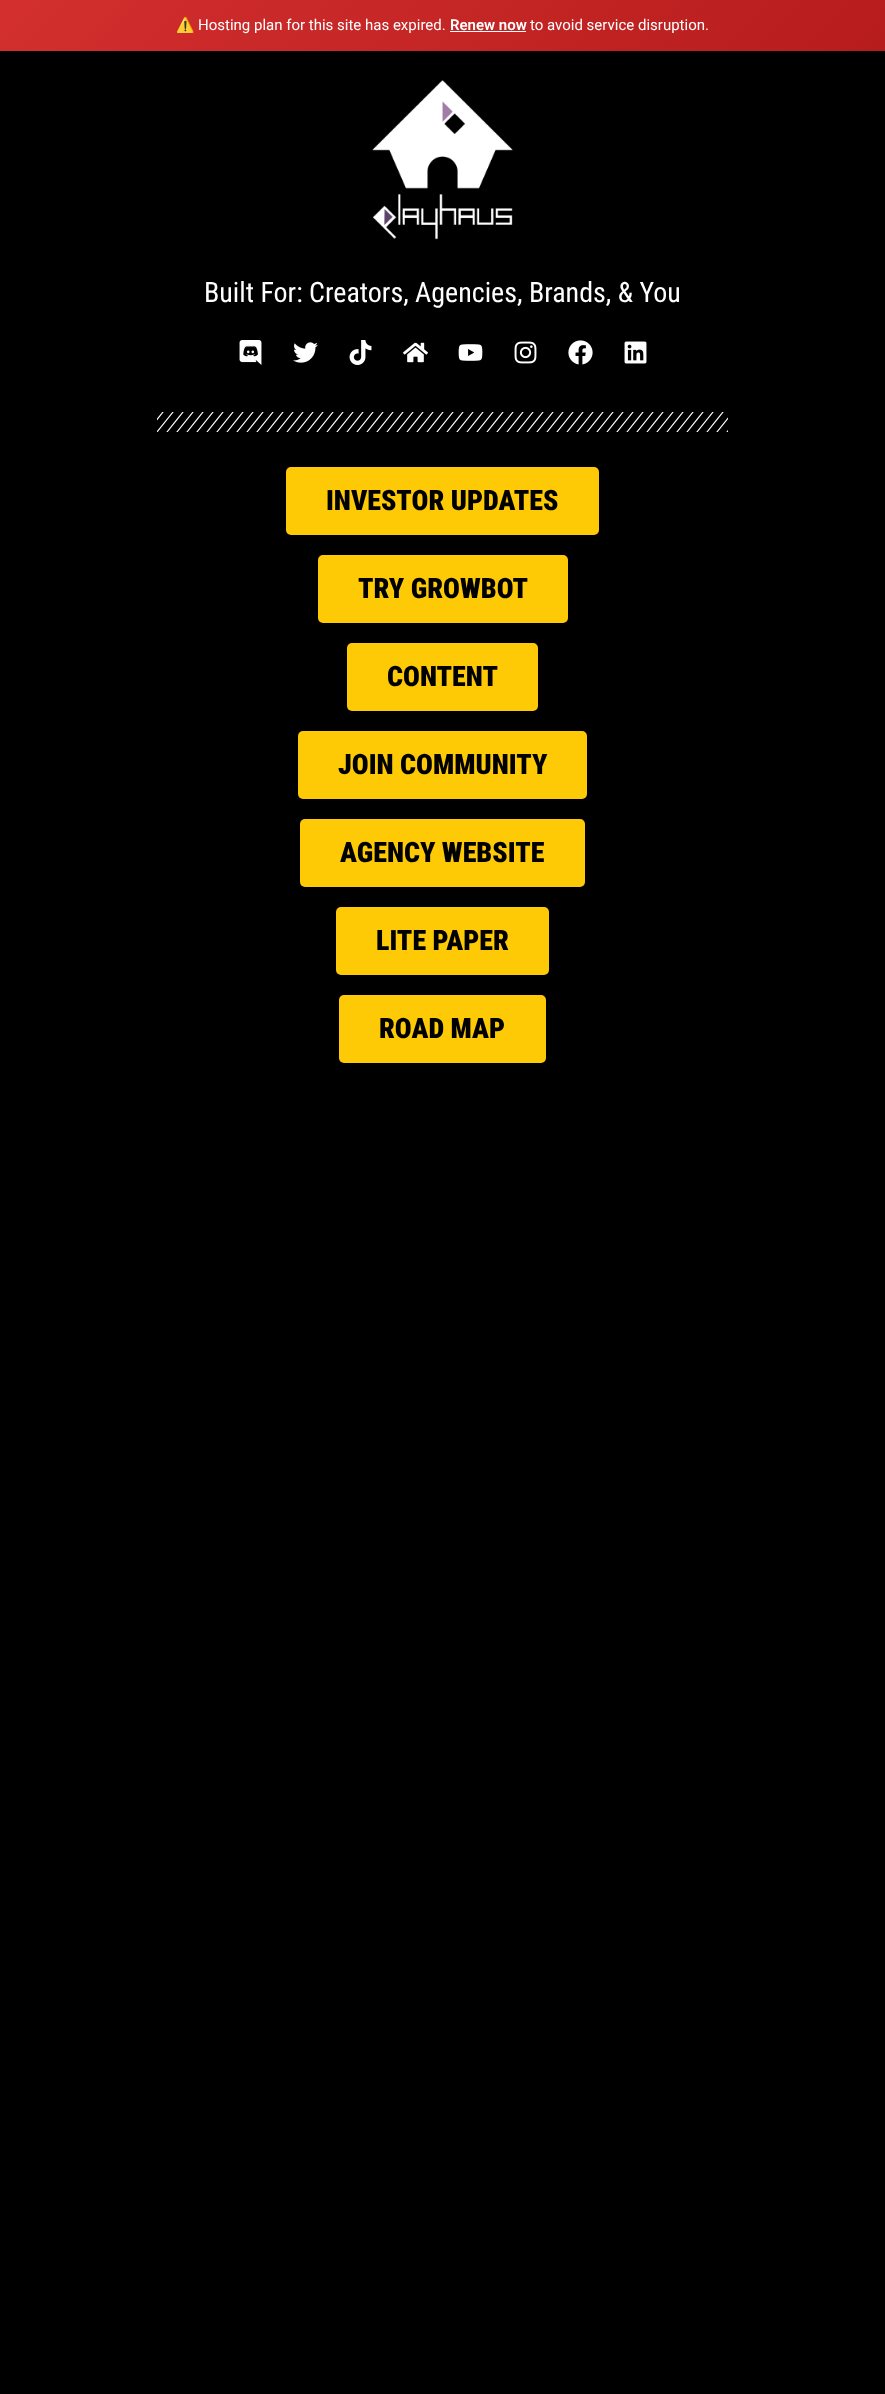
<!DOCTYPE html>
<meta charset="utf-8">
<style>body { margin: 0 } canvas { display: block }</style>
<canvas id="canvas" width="885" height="2394"></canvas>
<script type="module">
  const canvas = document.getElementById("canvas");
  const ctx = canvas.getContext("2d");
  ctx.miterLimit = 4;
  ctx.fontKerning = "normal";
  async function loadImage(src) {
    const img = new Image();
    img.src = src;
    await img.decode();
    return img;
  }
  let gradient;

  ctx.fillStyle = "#000000";
  ctx.fillRect(0, 0, 885, 2394);
  gradient = ctx.createLinearGradient(208, -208, 677, 260);
  gradient.addColorStop(0, "#d32f2f");
  gradient.addColorStop(1, "#b71c1c");
  ctx.fillStyle = gradient;
  ctx.fillRect(0, 0, 885, 51);
  ctx.font = "15px Noto Color Emoji";
  ctx.fillStyle = "#ffffff";
  ctx.fillText("⚠️", 176, 30);
  ctx.font = "15px Roboto";
  ctx.fillText("Hosting plan for this site has expired.", 198, 30);
  ctx.font = "600 15px Roboto";
  ctx.fillText("Renew now", 450, 30);
  ctx.fillRect(450, 31, 76, 1);
  ctx.font = "15px Roboto";
  ctx.fillText("to avoid service disruption.", 530, 30);
  ctx.drawImage(await loadImage("img1.png"), 372, 80, 141, 160);
  ctx.font = "28px Roboto Condensed";
  ctx.fillText("Built For: Creators, Agencies, Brands, & You", 204, 302);
  ctx.drawImage(await loadImage("img2.png"), 239, 340, 23, 25);
  ctx.drawImage(await loadImage("img3.png"), 293, 342, 25, 21);
  ctx.drawImage(await loadImage("img4.png"), 349, 340, 23, 25);
  ctx.drawImage(await loadImage("img5.png"), 403, 342, 25, 21);
  ctx.drawImage(await loadImage("img6.png"), 458, 344, 25, 17);
  ctx.drawImage(await loadImage("img7.png"), 514, 341, 23, 23);
  ctx.drawImage(await loadImage("img8.png"), 568, 340, 25, 25);
  ctx.drawImage(await loadImage("img9.png"), 624, 341, 23, 23);
  ctx.drawImage(await loadImage("img10.png"), 157, 412, 571, 20);
  ctx.fillStyle = "#feca05";
  ctx.beginPath();
  ctx.roundRect(286, 467, 313, 68, 5);
  ctx.fill();
  ctx.font = "900 28px Roboto Condensed";
  ctx.fillStyle = "#000000";
  ctx.fillText("INVESTOR UPDATES", 326, 510);
  ctx.fillStyle = "#feca05";
  ctx.beginPath();
  ctx.roundRect(318, 555, 250, 68, 5);
  ctx.fill();
  ctx.fillStyle = "#000000";
  ctx.fillText("TRY GROWBOT", 358, 598);
  ctx.fillStyle = "#feca05";
  ctx.beginPath();
  ctx.roundRect(347, 643, 191, 68, 5);
  ctx.fill();
  ctx.fillStyle = "#000000";
  ctx.fillText("CONTENT", 387, 686);
  ctx.fillStyle = "#feca05";
  ctx.beginPath();
  ctx.roundRect(298, 731, 289, 68, 5);
  ctx.fill();
  ctx.fillStyle = "#000000";
  ctx.fillText("JOIN COMMUNITY", 338, 774);
  ctx.fillStyle = "#feca05";
  ctx.beginPath();
  ctx.roundRect(300, 819, 285, 68, 5);
  ctx.fill();
  ctx.fillStyle = "#000000";
  ctx.fillText("AGENCY WEBSITE", 340, 862);
  ctx.fillStyle = "#feca05";
  ctx.beginPath();
  ctx.roundRect(336, 907, 213, 68, 5);
  ctx.fill();
  ctx.fillStyle = "#000000";
  ctx.fillText("LITE PAPER", 376, 950);
  ctx.fillStyle = "#feca05";
  ctx.beginPath();
  ctx.roundRect(339, 995, 207, 68, 5);
  ctx.fill();
  ctx.fillStyle = "#000000";
  ctx.fillText("ROAD MAP", 379, 1038);
</script>
